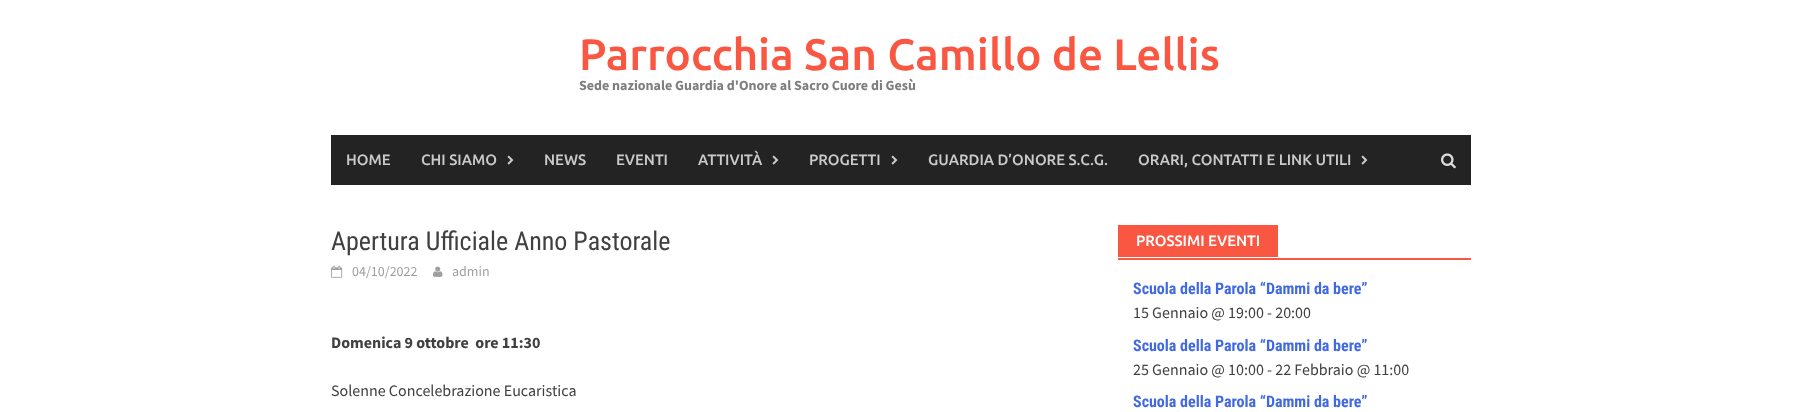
<!DOCTYPE html>
<meta charset="utf-8">
<style>body { margin: 0 } canvas { display: block }</style>
<canvas id="canvas" width="1802" height="412"></canvas>
<script type="module">
  const canvas = document.getElementById("canvas");
  const ctx = canvas.getContext("2d");
  ctx.miterLimit = 4;
  ctx.fontKerning = "normal";
  async function loadImage(src) {
    const img = new Image();
    img.src = src;
    await img.decode();
    return img;
  }

  ctx.fillStyle = "#ffffff";
  ctx.fillRect(0, 0, 1802, 412);
  ctx.font = "500 44px Ubuntu";
  ctx.fillStyle = "#fa5742";
  ctx.fillText("Parrocchia San Camillo de Lellis", 579, 70);
  ctx.font = "bold 14px Source Sans Pro";
  ctx.fillStyle = "#7e7e7e";
  ctx.fillText("Sede nazionale Guardia d'Onore al Sacro Cuore di Gesù", 579, 90);
  ctx.fillStyle = "#232323";
  ctx.fillRect(331, 135, 1140, 50);
  ctx.font = "500 15px Ubuntu";
  ctx.fillStyle = "#cacaca";
  ctx.fillText("HOME", 346, 165);
  ctx.fillText("CHI SIAMO", 421, 165);
  ctx.drawImage(await loadImage("img1.png"), 507, 155, 7, 10);
  ctx.fillText("NEWS", 544, 165);
  ctx.fillText("EVENTI", 616, 165);
  ctx.fillText("ATTIVITÀ", 698, 165);
  ctx.drawImage(await loadImage("img1.png"), 772, 155, 7, 10);
  ctx.fillText("PROGETTI", 809, 165);
  ctx.drawImage(await loadImage("img1.png"), 891, 155, 7, 10);
  ctx.fillText("GUARDIA D’ONORE S.C.G.", 928, 165);
  ctx.fillText("ORARI, CONTATTI E LINK UTILI", 1138, 165);
  ctx.drawImage(await loadImage("img1.png"), 1361, 155, 7, 10);
  ctx.drawImage(await loadImage("img2.png"), 1441, 153, 15, 16);
  ctx.font = "26px Roboto Condensed";
  ctx.fillStyle = "#404040";
  ctx.fillText("Apertura Ufficiale Anno Pastorale", 331, 250);
  ctx.drawImage(await loadImage("img3.png"), 331, 265, 12, 13);
  ctx.font = "14px Source Sans Pro";
  ctx.fillStyle = "#9f9f9f";
  ctx.fillText("04/10/2022", 352, 276);
  ctx.drawImage(await loadImage("img4.png"), 433, 266, 10, 11);
  ctx.fillText("admin", 452, 276);
  ctx.font = "bold 16px Source Sans Pro";
  ctx.fillStyle = "#404040";
  ctx.fillText("Domenica 9 ottobre  ore 11:30", 331, 348);
  ctx.font = "16px Source Sans Pro";
  ctx.fillText("Solenne Concelebrazione Eucaristica", 331, 396);
  ctx.fillStyle = "#fa5742";
  ctx.fillRect(1118, 258, 353, 2);
  ctx.fillRect(1118, 225, 160, 32);
  ctx.font = "500 15px Ubuntu";
  ctx.fillStyle = "#ffffff";
  ctx.fillText("PROSSIMI EVENTI", 1136, 246);
  ctx.font = "bold 16px Roboto Condensed";
  ctx.fillStyle = "#4169e1";
  ctx.fillText("Scuola della Parola “Dammi da bere”", 1133, 294);
  ctx.font = "16px Source Sans Pro";
  ctx.fillStyle = "#404040";
  ctx.fillText("15 Gennaio @ 19:00 - 20:00", 1133, 318);
  ctx.font = "bold 16px Roboto Condensed";
  ctx.fillStyle = "#4169e1";
  ctx.fillText("Scuola della Parola “Dammi da bere”", 1133, 351);
  ctx.font = "16px Source Sans Pro";
  ctx.fillStyle = "#404040";
  ctx.fillText("25 Gennaio @ 10:00 - 22 Febbraio @ 11:00", 1133, 375);
  ctx.font = "bold 16px Roboto Condensed";
  ctx.fillStyle = "#4169e1";
  ctx.fillText("Scuola della Parola “Dammi da bere”", 1133, 407);
</script>
